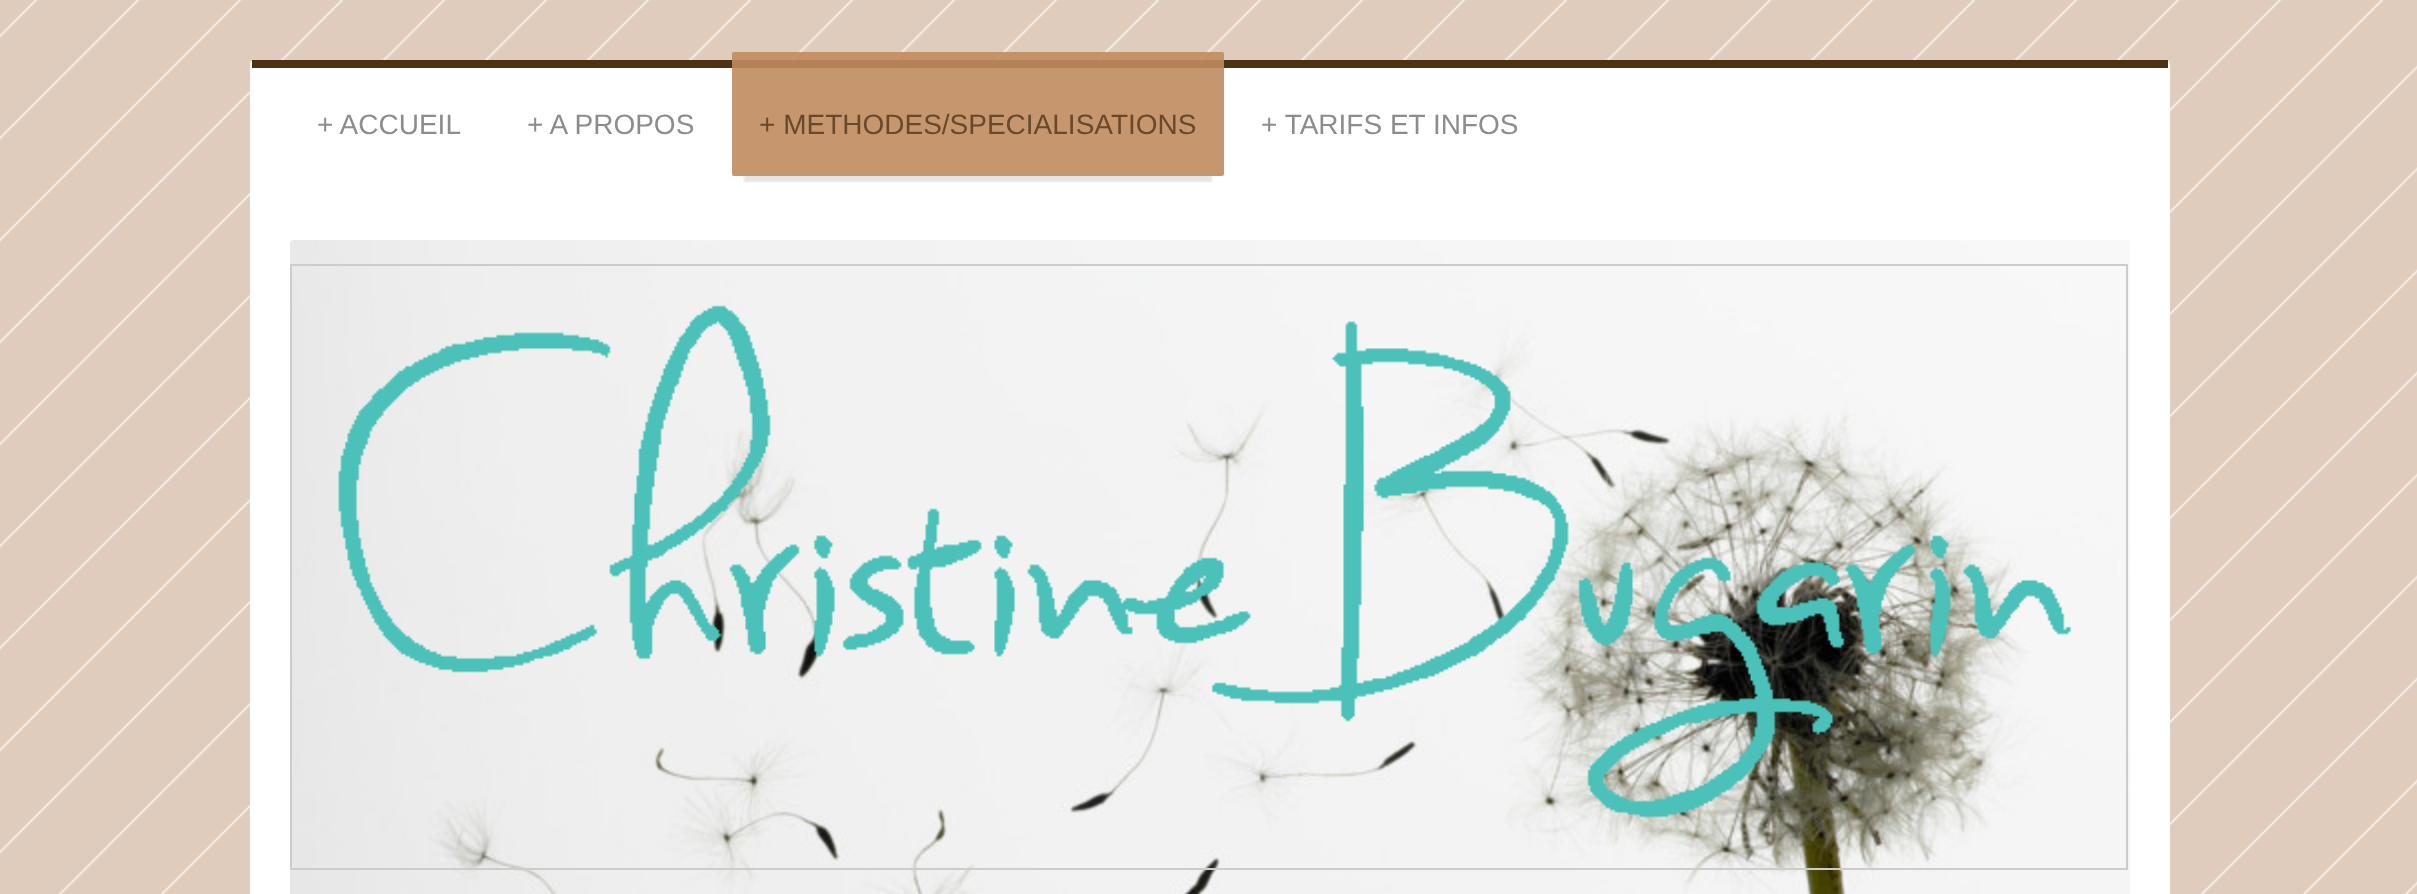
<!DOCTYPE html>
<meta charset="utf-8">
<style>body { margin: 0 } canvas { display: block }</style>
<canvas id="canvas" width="2417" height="894"></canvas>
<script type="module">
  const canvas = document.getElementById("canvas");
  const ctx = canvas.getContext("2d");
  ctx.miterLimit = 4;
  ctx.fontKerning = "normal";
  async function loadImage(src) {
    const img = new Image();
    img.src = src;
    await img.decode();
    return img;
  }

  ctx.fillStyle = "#dfccbc";
  ctx.fillRect(0, 0, 2417, 894);
  ctx.drawImage(await loadImage("img1.png"), 0, 0, 2417, 894);
  ctx.fillStyle = "#ffffff";
  ctx.beginPath();
  ctx.moveTo(254, 60);
  ctx.lineTo(2166, 60);
  ctx.bezierCurveTo(2168, 60, 2170, 62, 2170, 64);
  ctx.lineTo(2170, 894);
  ctx.bezierCurveTo(2170, 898.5, 2166.5, 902, 2162, 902);
  ctx.lineTo(258, 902);
  ctx.bezierCurveTo(253.5, 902, 250, 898.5, 250, 894);
  ctx.lineTo(250, 64);
  ctx.bezierCurveTo(250, 62, 252, 60, 254, 60);
  ctx.closePath();
  ctx.fill();
  ctx.fillStyle = "#4c3112";
  ctx.fillRect(252, 60, 1916, 8);
  ctx.font = "28px Liberation Sans";
  ctx.fillStyle = "#8c8c8c";
  ctx.fillText("+ ACCUEIL", 317, 134);
  ctx.fillText("+ A PROPOS", 527, 134);
  ctx.save();
  ctx.beginPath();
  ctx.rect(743, 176, 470, 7);
  ctx.clip();
  ctx.fillStyle = "rgba(0, 0, 0, 0.1)";
  ctx.filter = "blur(1px)";
  ctx.beginPath();
  ctx.rect(744, 82, 468, 100);
  ctx.fill();
  ctx.filter = "none";
  ctx.restore();
  ctx.fillStyle = "rgba(192, 140, 94, 0.9)";
  ctx.beginPath();
  ctx.roundRect(732, 52, 492, 124, 2);
  ctx.fill();
  ctx.fillStyle = "#69482b";
  ctx.fillText("+ METHODES/SPECIALISATIONS", 759, 134);
  ctx.fillStyle = "#8c8c8c";
  ctx.fillText("+ TARIFS ET INFOS", 1261, 134);
  ctx.drawImage(await loadImage("img2.png"), 290, 240, 1840, 4);
  ctx.drawImage(await loadImage("img3.png"), 290, 240, 1840, 654);
  ctx.strokeStyle = "#cccccc";
  ctx.lineWidth = 2;
  ctx.strokeRect(291, 265, 1836, 604);
  ctx.drawImage(await loadImage("img4.png"), 338, 305, 1734, 513);
</script>
